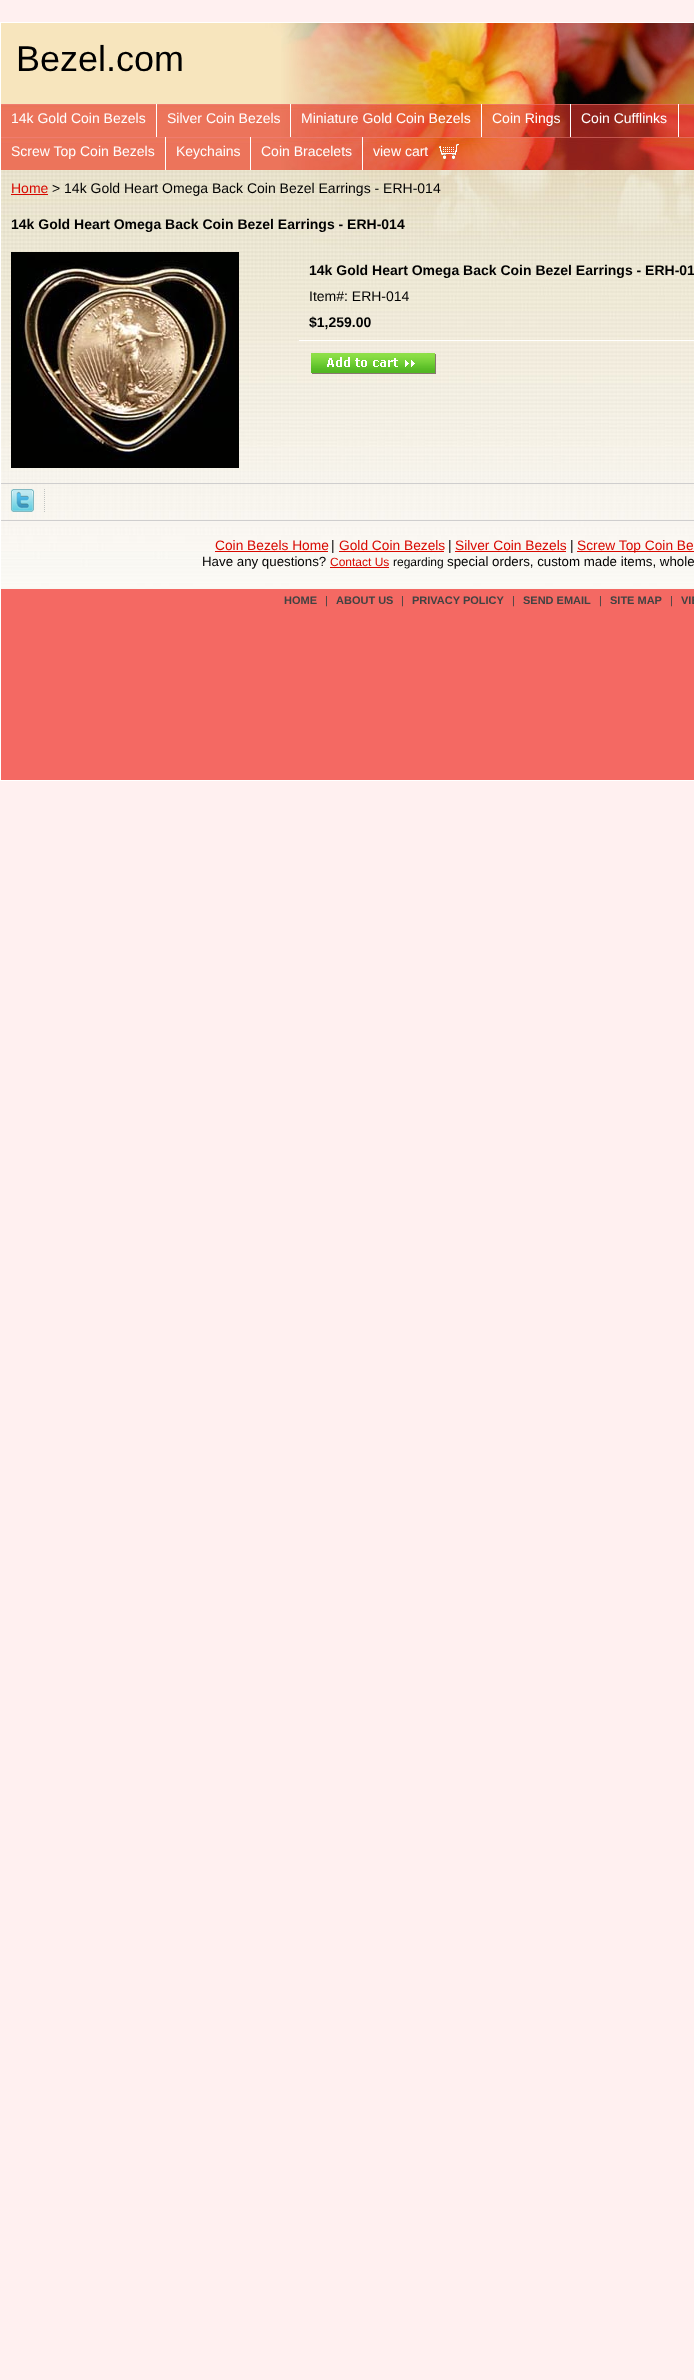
<!DOCTYPE html>
<meta charset="utf-8">
<style>body { margin: 0 } canvas { display: block }</style>
<canvas id="canvas" width="694" height="2380"></canvas>
<script type="module">
  const canvas = document.getElementById("canvas");
  const ctx = canvas.getContext("2d");
  ctx.miterLimit = 4;
  ctx.fontKerning = "normal";
  async function loadImage(src) {
    const img = new Image();
    img.src = src;
    await img.decode();
    return img;
  }

  ctx.fillStyle = "#fff0f0";
  ctx.fillRect(0, 0, 694, 2380);
  ctx.fillStyle = "#ffffff";
  ctx.fillRect(0, 22, 694, 759);
  ctx.drawImage(await loadImage("img1.png"), 1, 170, 693, 419);
  ctx.drawImage(await loadImage("img2.png"), 1, 23, 693, 81);
  ctx.font = "36px Liberation Sans";
  ctx.fillStyle = "#000000";
  ctx.fillText("Bezel.com", 16, 71);
  ctx.drawImage(await loadImage("img3.png"), 1, 104, 693, 66);
  ctx.font = "14px Liberation Sans";
  ctx.fillStyle = "#ffffff";
  ctx.fillText("14k Gold Coin Bezels", 11, 123);
  ctx.fillRect(156, 104, 1, 33);
  ctx.fillText("Silver Coin Bezels", 167, 123);
  ctx.fillRect(290, 104, 1, 33);
  ctx.fillText("Miniature Gold Coin Bezels", 301, 123);
  ctx.fillRect(481, 104, 1, 33);
  ctx.fillText("Coin Rings", 492, 123);
  ctx.fillRect(570, 104, 1, 33);
  ctx.fillText("Coin Cufflinks", 581, 123);
  ctx.fillRect(678, 104, 1, 33);
  ctx.fillText("Screw Top Coin Bezels", 11, 156);
  ctx.fillRect(165, 137, 1, 33);
  ctx.fillText("Keychains", 176, 156);
  ctx.fillRect(250, 137, 1, 33);
  ctx.fillText("Coin Bracelets", 261, 156);
  ctx.fillRect(362, 137, 1, 33);
  ctx.fillText("view cart", 373, 156);
  ctx.drawImage(await loadImage("img4.png"), 439, 144, 20, 15);
  ctx.fillStyle = "#d80900";
  ctx.fillText("Home", 11, 193);
  ctx.fillRect(11, 194, 37, 1);
  ctx.fillStyle = "#000000";
  ctx.fillText("> 14k Gold Heart Omega Back Coin Bezel Earrings - ERH-014", 52, 193);
  ctx.font = "bold 14px Liberation Sans";
  ctx.fillText("14k Gold Heart Omega Back Coin Bezel Earrings - ERH-014", 11, 229);
  ctx.drawImage(await loadImage("img5.png"), 11, 252, 228, 216);
  ctx.fillText("14k Gold Heart Omega Back Coin Bezel Earrings - ERH-01", 309, 275);
  ctx.font = "14px Liberation Sans";
  ctx.fillText("Item#: ERH-014", 309, 301);
  ctx.font = "bold 14px Liberation Sans";
  ctx.fillText("$1,259.00", 309, 327);
  ctx.fillStyle = "#ffffff";
  ctx.fillRect(299, 340, 395, 1);
  ctx.drawImage(await loadImage("img6.png"), 311, 353, 125, 21);
  ctx.fillStyle = "#cfcece";
  ctx.fillRect(1, 483, 693, 1);
  ctx.drawImage(await loadImage("img7.png"), 11, 489, 23, 23);
  ctx.drawImage(await loadImage("img8.png"), 44, 489, 1, 23);
  ctx.fillRect(1, 520, 693, 1);
  ctx.font = "13.75px Liberation Sans";
  ctx.fillStyle = "#d80900";
  ctx.fillText("Coin Bezels Home", 215, 550);
  ctx.fillRect(215, 551, 113, 1);
  ctx.fillStyle = "#000000";
  ctx.fillText("|", 331, 550);
  ctx.fillStyle = "#d80900";
  ctx.fillText("Gold Coin Bezels", 339, 550);
  ctx.fillRect(339, 551, 105, 1);
  ctx.fillStyle = "#000000";
  ctx.fillText("|", 448, 550);
  ctx.fillStyle = "#d80900";
  ctx.fillText("Silver Coin Bezels", 455, 550);
  ctx.fillRect(455, 551, 111, 1);
  ctx.fillStyle = "#000000";
  ctx.fillText("|", 570, 550);
  ctx.fillStyle = "#d80900";
  ctx.fillRect(577, 551, 117, 1);
  ctx.fillText("Screw Top Coin Be", 577, 550);
  ctx.font = "13.3px Liberation Sans";
  ctx.fillStyle = "#000000";
  ctx.fillText("Have any questions?", 202, 566);
  ctx.font = "12px Liberation Sans";
  ctx.fillStyle = "#d80900";
  ctx.fillText("Contact Us", 330, 566);
  ctx.fillRect(330, 567, 59, 1);
  ctx.fillStyle = "#000000";
  ctx.fillText("regarding", 393, 566);
  ctx.font = "13.3px Liberation Sans";
  ctx.fillText("special orders, custom made items, whole", 447, 566);
  ctx.fillStyle = "#f46963";
  ctx.fillRect(1, 589, 693, 191);
  ctx.font = "bold 11px Liberation Sans";
  ctx.fillStyle = "#424242";
  ctx.fillText("HOME", 284, 604);
  ctx.font = "11px Liberation Sans";
  ctx.fillText("|", 325, 604);
  ctx.font = "bold 11px Liberation Sans";
  ctx.fillText("ABOUT US", 336, 604);
  ctx.font = "11px Liberation Sans";
  ctx.fillText("|", 401, 604);
  ctx.font = "bold 11px Liberation Sans";
  ctx.fillText("PRIVACY POLICY", 412, 604);
  ctx.font = "11px Liberation Sans";
  ctx.fillText("|", 512, 604);
  ctx.font = "bold 11px Liberation Sans";
  ctx.fillText("SEND EMAIL", 523, 604);
  ctx.font = "11px Liberation Sans";
  ctx.fillText("|", 599, 604);
  ctx.font = "bold 11px Liberation Sans";
  ctx.fillText("SITE MAP", 610, 604);
  ctx.font = "11px Liberation Sans";
  ctx.fillText("|", 670, 604);
  ctx.font = "bold 11px Liberation Sans";
  ctx.fillText("VIE", 681, 604);
</script>
